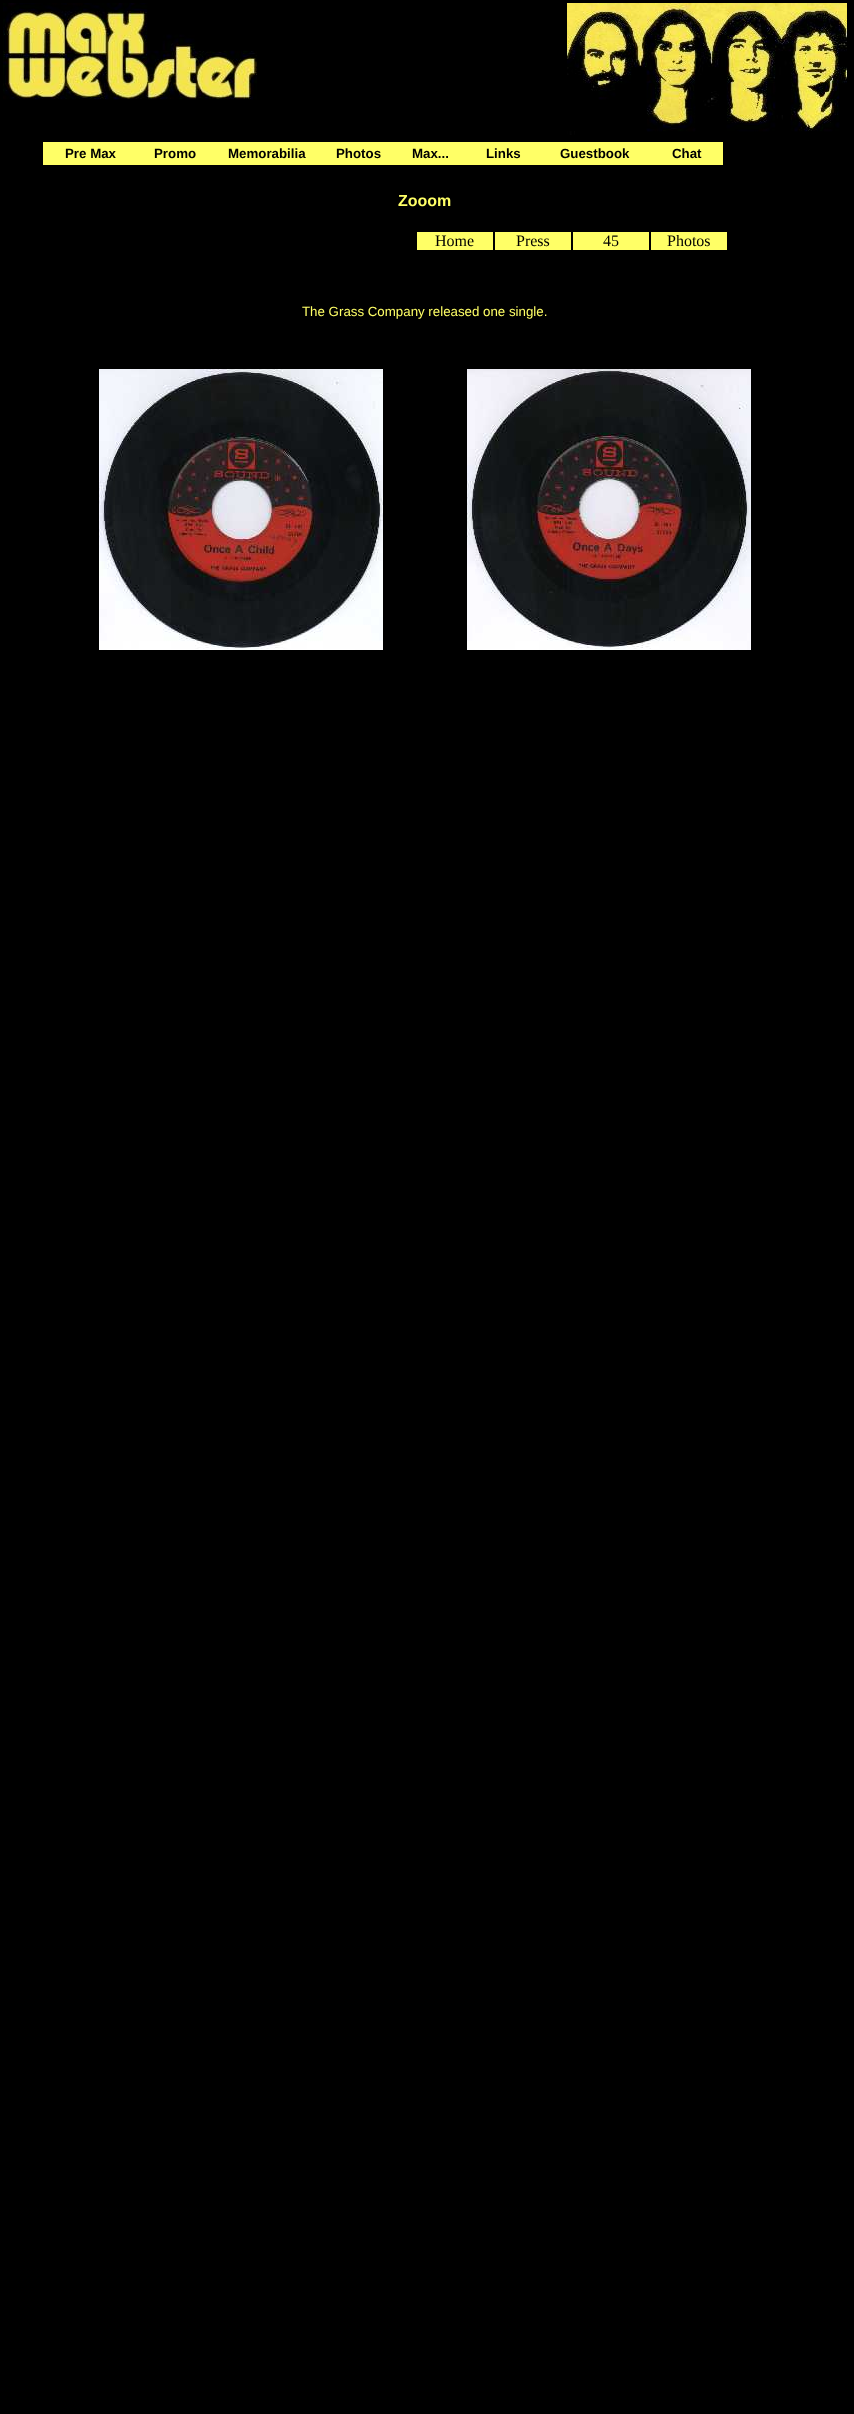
<!DOCTYPE html>
<meta charset="utf-8">
<style>body { margin: 0 } canvas { display: block }</style>
<canvas id="canvas" width="854" height="2414"></canvas>
<script type="module">
  const canvas = document.getElementById("canvas");
  const ctx = canvas.getContext("2d");
  ctx.miterLimit = 4;
  ctx.fontKerning = "normal";
  async function loadImage(src) {
    const img = new Image();
    img.src = src;
    await img.decode();
    return img;
  }

  ctx.fillStyle = "#000000";
  ctx.fillRect(0, 0, 854, 2414);
  ctx.drawImage(await loadImage("img1.png"), 3, 3, 254, 97);
  ctx.drawImage(await loadImage("img2.png"), 567, 3, 280, 132);
  ctx.fillStyle = "#ffff66";
  ctx.fillRect(43, 142, 680, 23);
  ctx.font = "bold 13.3px Liberation Sans";
  ctx.fillStyle = "#000000";
  ctx.fillText("Pre Max", 65, 158);
  ctx.fillText("Promo", 154, 158);
  ctx.fillText("Memorabilia", 228, 158);
  ctx.fillText("Photos", 336, 158);
  ctx.fillText("Max...", 412, 158);
  ctx.fillText("Links", 486, 158);
  ctx.fillText("Guestbook", 560, 158);
  ctx.fillText("Chat", 672, 158);
  ctx.font = "bold 16px Liberation Sans";
  ctx.fillStyle = "#ffff66";
  ctx.fillText("Zooom", 398, 206);
  ctx.fillRect(417, 232, 76, 18);
  ctx.font = "16px Liberation Serif";
  ctx.fillStyle = "#000000";
  ctx.fillText("Home", 435, 246);
  ctx.fillStyle = "#ffff66";
  ctx.fillRect(495, 232, 76, 18);
  ctx.fillStyle = "#000000";
  ctx.fillText("Press", 516, 246);
  ctx.fillStyle = "#ffff66";
  ctx.fillRect(573, 232, 76, 18);
  ctx.fillStyle = "#000000";
  ctx.fillText("45", 603, 246);
  ctx.fillStyle = "#ffff66";
  ctx.fillRect(651, 232, 76, 18);
  ctx.fillStyle = "#000000";
  ctx.fillText("Photos", 667, 246);
  ctx.font = "13.3px Liberation Sans";
  ctx.fillStyle = "#ffff66";
  ctx.fillText("The Grass Company released one single.", 302, 316);
  ctx.drawImage(await loadImage("img3.png"), 99, 369, 284, 281);
  ctx.drawImage(await loadImage("img4.png"), 467, 369, 284, 281);
</script>
